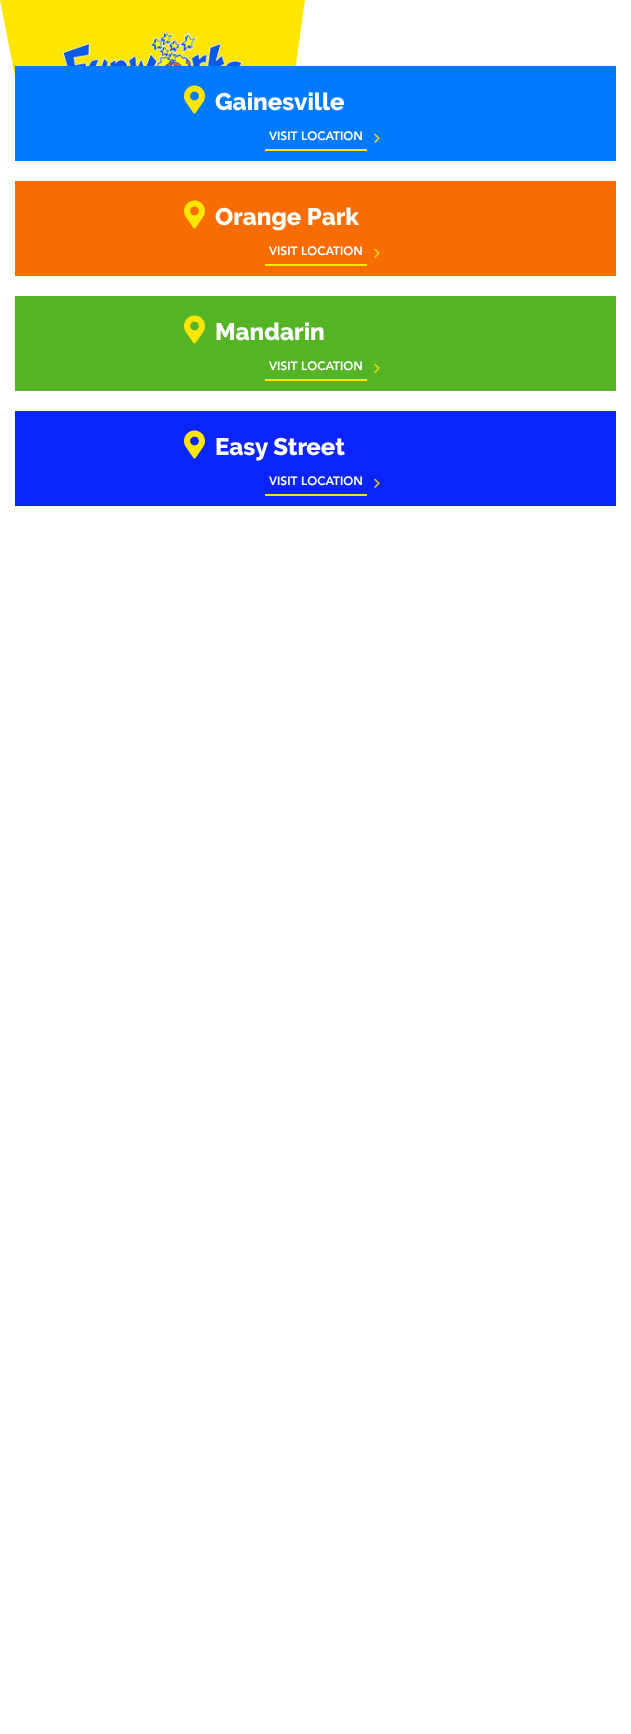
<!DOCTYPE html>
<meta charset="utf-8">
<style>body { margin: 0 } canvas { display: block }</style>
<canvas id="canvas" width="631" height="1734"></canvas>
<script type="module">
  const canvas = document.getElementById("canvas");
  const ctx = canvas.getContext("2d");
  ctx.miterLimit = 4;
  ctx.fontKerning = "normal";
  async function loadImage(src) {
    const img = new Image();
    img.src = src;
    await img.decode();
    return img;
  }

  ctx.fillStyle = "#ffffff";
  ctx.fillRect(0, 0, 631, 1734);
  ctx.drawImage(await loadImage("img1.png"), 0, 0, 305, 76);
  ctx.drawImage(await loadImage("img2.png"), 63, 31, 179, 35);
  ctx.fillStyle = "#007bff";
  ctx.fillRect(15, 66, 601, 95);
  ctx.drawImage(await loadImage("img3.png"), 184, 85, 21, 29);
  ctx.font = "800 24px Raleway";
  ctx.fillStyle = "#ffffff";
  ctx.fillText("Gainesville", 215, 110);
  ctx.fillStyle = "#ffe600";
  ctx.fillRect(265, 149, 102, 2);
  ctx.font = "900 12px Avenir";
  ctx.fillStyle = "#ffffff";
  ctx.fillText("VISIT LOCATION", 269, 140);
  ctx.drawImage(await loadImage("img4.png"), 373, 133, 7, 10);
  ctx.fillStyle = "#f76d02";
  ctx.fillRect(15, 181, 601, 95);
  ctx.drawImage(await loadImage("img5.png"), 184, 200, 21, 29);
  ctx.font = "800 24px Raleway";
  ctx.fillStyle = "#ffffff";
  ctx.fillText("Orange Park", 215, 225);
  ctx.fillStyle = "#ffe600";
  ctx.fillRect(265, 264, 102, 2);
  ctx.font = "900 12px Avenir";
  ctx.fillStyle = "#ffffff";
  ctx.fillText("VISIT LOCATION", 269, 255);
  ctx.drawImage(await loadImage("img6.png"), 373, 248, 7, 10);
  ctx.fillStyle = "#55b426";
  ctx.fillRect(15, 296, 601, 95);
  ctx.drawImage(await loadImage("img7.png"), 184, 315, 21, 29);
  ctx.font = "800 24px Raleway";
  ctx.fillStyle = "#ffffff";
  ctx.fillText("Mandarin", 215, 340);
  ctx.fillStyle = "#ffe600";
  ctx.fillRect(265, 379, 102, 2);
  ctx.font = "900 12px Avenir";
  ctx.fillStyle = "#ffffff";
  ctx.fillText("VISIT LOCATION", 269, 370);
  ctx.drawImage(await loadImage("img8.png"), 373, 363, 7, 10);
  ctx.fillStyle = "#0b24fb";
  ctx.fillRect(15, 411, 601, 95);
  ctx.drawImage(await loadImage("img9.png"), 184, 430, 21, 29);
  ctx.font = "800 24px Raleway";
  ctx.fillStyle = "#ffffff";
  ctx.fillText("Easy Street", 215, 455);
  ctx.fillStyle = "#ffe600";
  ctx.fillRect(265, 494, 102, 2);
  ctx.font = "900 12px Avenir";
  ctx.fillStyle = "#ffffff";
  ctx.fillText("VISIT LOCATION", 269, 485);
  ctx.drawImage(await loadImage("img10.png"), 373, 478, 7, 10);
</script>
